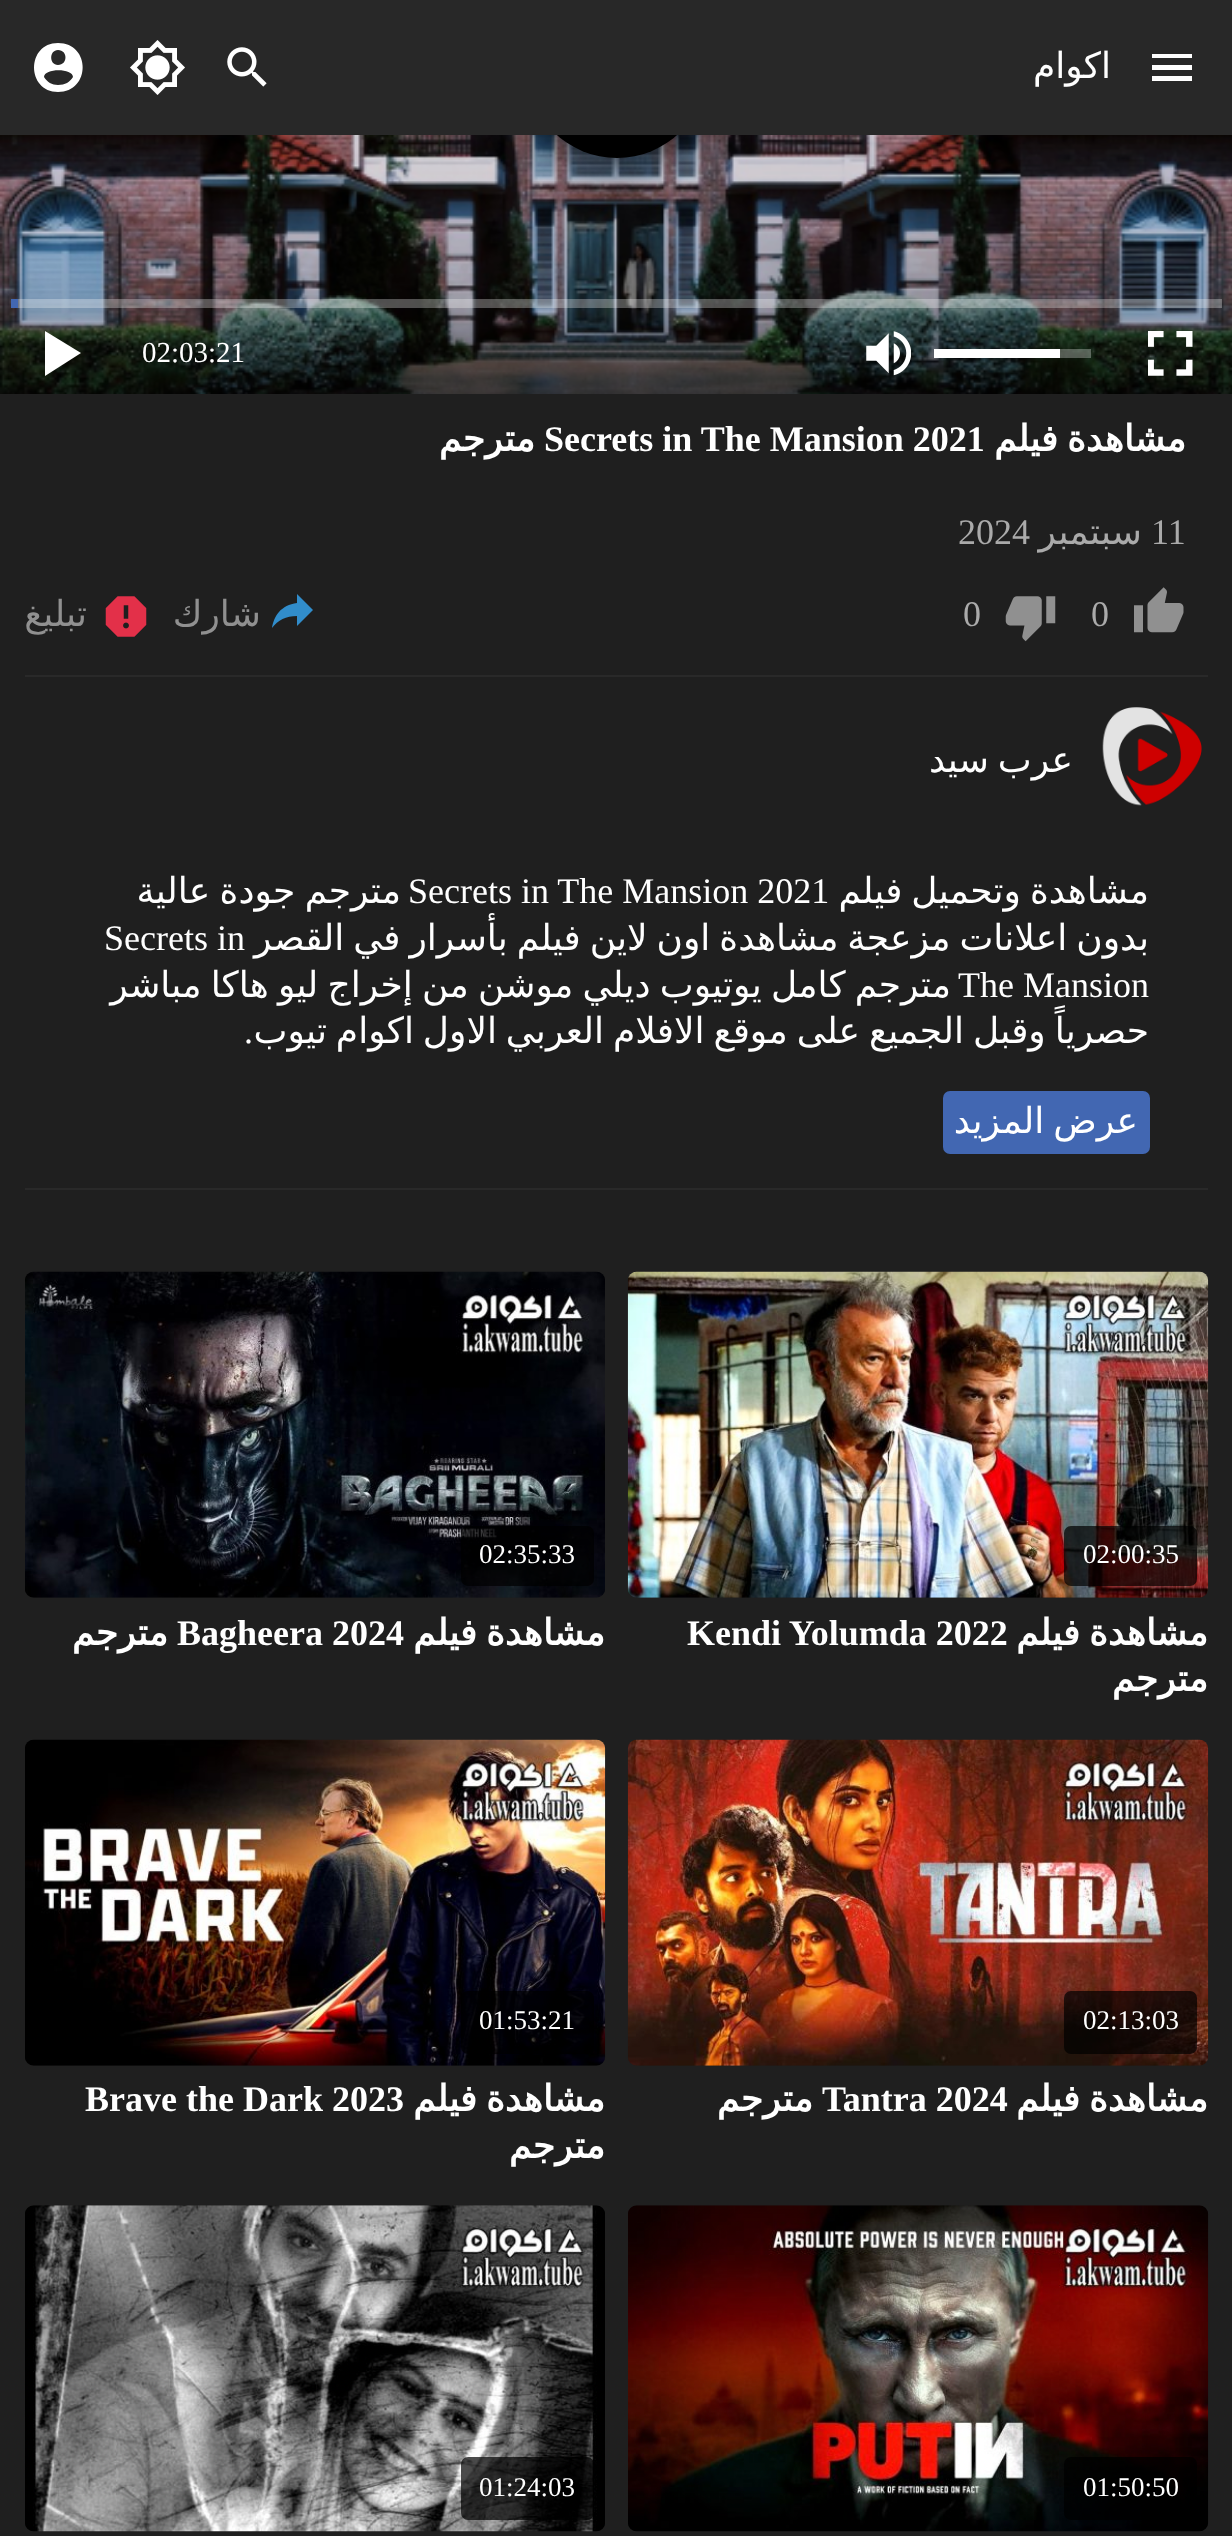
<!DOCTYPE html>
<meta charset="utf-8">
<style>body { margin: 0 } canvas { display: block }</style>
<canvas id="canvas" width="1232" height="2536"></canvas>
<script type="module">
  const canvas = document.getElementById("canvas");
  const ctx = canvas.getContext("2d");
  ctx.miterLimit = 4;
  ctx.fontKerning = "normal";
  async function loadImage(src) {
    const img = new Image();
    img.src = src;
    await img.decode();
    return img;
  }

  ctx.fillStyle = "#1f1f1f";
  ctx.fillRect(0, 0, 1232, 2536);
  ctx.drawImage(await loadImage("img3.png"), 0, 135, 1232, 259);
  ctx.fillStyle = "#000000";
  ctx.filter = "blur(22.5px)";
  ctx.beginPath();
  ctx.roundRect(527, -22, 180, 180, 90);
  ctx.fill();
  ctx.filter = "none";
  ctx.beginPath();
  ctx.arc(617, 68, 90, 0, Math.PI * 2);
  ctx.fill();
  ctx.fillStyle = "#282828";
  ctx.fillRect(0, 0, 1232, 135);
  ctx.fillStyle = "#ffffff";
  ctx.beginPath();
  ctx.moveTo(1152, 54);
  ctx.lineTo(1192, 54);
  ctx.lineTo(1192, 58);
  ctx.lineTo(1152, 58);
  ctx.lineTo(1152, 54);
  ctx.moveTo(1152, 65);
  ctx.lineTo(1192, 65);
  ctx.lineTo(1192, 70);
  ctx.lineTo(1152, 70);
  ctx.lineTo(1152, 65);
  ctx.moveTo(1152, 76);
  ctx.lineTo(1192, 76);
  ctx.lineTo(1192, 81);
  ctx.lineTo(1152, 81);
  ctx.closePath();
  ctx.fill();
  ctx.direction = "rtl";
  ctx.font = "36px DejaVu Sans";
  ctx.fillText("اكوام", 1111, 78);
  ctx.drawImage(await loadImage("img1.png"), 227, 47, 40, 40);
  ctx.drawImage(await loadImage("img2.png"), 130, 40, 55, 55);
  ctx.beginPath();
  ctx.moveTo(58, 85);
  ctx.bezierCurveTo(52, 85, 47, 82, 44, 77);
  ctx.bezierCurveTo(44, 68, 73, 68, 73, 77);
  ctx.bezierCurveTo(70, 82, 65, 85, 58, 85);
  ctx.moveTo(58, 50);
  ctx.bezierCurveTo(68, 50, 68, 65, 58, 65);
  ctx.bezierCurveTo(49, 65, 49, 50, 58, 50);
  ctx.moveTo(58, 43);
  ctx.bezierCurveTo(26, 43, 26, 92, 58, 92);
  ctx.bezierCurveTo(91, 92, 91, 43, 58, 43);
  ctx.closePath();
  ctx.fill();
  ctx.fillStyle = "rgba(255, 255, 255, 0.3)";
  ctx.fillRect(18, 299, 1204, 9);
  ctx.fillStyle = "#4267b2";
  ctx.fillRect(11, 299, 7, 9);
  ctx.drawImage(await loadImage("img4.png"), 1148, 331, 45, 45);
  ctx.fillStyle = "rgba(255, 255, 255, 0.3)";
  ctx.fillRect(1060, 349, 31, 9);
  ctx.fillStyle = "#ffffff";
  ctx.fillRect(934, 349, 126, 9);
  ctx.drawImage(await loadImage("img5.png"), 866, 331, 45, 45);
  ctx.direction = "ltr";
  ctx.font = "29px Liberation Serif";
  ctx.fillText("02:03:21", 142, 362);
  ctx.beginPath();
  ctx.moveTo(45, 331);
  ctx.lineTo(45, 376);
  ctx.lineTo(81, 353);
  ctx.closePath();
  ctx.fill();
  ctx.wordSpacing = "-2.5px";
  ctx.direction = "rtl";
  ctx.font = "bold 36px DejaVu Sans";
  ctx.fillText("مشاهدة فيلم", 1186, 451);
  ctx.wordSpacing = "0px";
  ctx.direction = "ltr";
  ctx.font = "bold 36px Liberation Serif";
  ctx.fillText("Secrets in The Mansion 2021", 544, 451);
  ctx.direction = "rtl";
  ctx.font = "bold 36px DejaVu Sans";
  ctx.fillText("مترجم", 535, 451);
  ctx.fillStyle = "#292929";
  ctx.fillRect(25, 675, 1183, 2);
  ctx.direction = "ltr";
  ctx.font = "36px Liberation Serif";
  ctx.fillStyle = "#aaaaaa";
  ctx.fillText("11", 1151, 544);
  ctx.direction = "rtl";
  ctx.font = "36px DejaVu Sans";
  ctx.fillText("سبتمبر", 1142, 544);
  ctx.direction = "ltr";
  ctx.font = "36px Liberation Serif";
  ctx.fillText("2024", 958, 544);
  ctx.drawImage(await loadImage("img6.png"), 1134, 587, 50, 46);
  ctx.fillText("0", 1091, 626);
  ctx.drawImage(await loadImage("img7.png"), 1005, 596, 51, 46);
  ctx.fillText("0", 963, 626);
  ctx.fillStyle = "#318dcb";
  ctx.beginPath();
  ctx.moveTo(313, 610);
  ctx.lineTo(297, 594);
  ctx.lineTo(297, 603);
  ctx.bezierCurveTo(281, 605, 274, 616, 272, 628);
  ctx.bezierCurveTo(278, 620, 286, 616, 297, 616);
  ctx.lineTo(297, 626);
  ctx.closePath();
  ctx.fill();
  ctx.direction = "rtl";
  ctx.font = "36px DejaVu Sans";
  ctx.fillStyle = "#909090";
  ctx.fillText("شارك", 261, 626);
  ctx.drawImage(await loadImage("img8.png"), 105, 596, 42, 41);
  ctx.fillText("تبليغ", 87, 626);
  ctx.drawImage(await loadImage("img9.png"), 1102, 707, 100, 99);
  ctx.wordSpacing = "-2.5px";
  ctx.fillStyle = "#ffffff";
  ctx.fillText("عرب سيد", 1073, 772);
  ctx.fillStyle = "#292929";
  ctx.fillRect(25, 1188, 1183, 2);
  ctx.fillStyle = "#ffffff";
  ctx.fillText("مشاهدة وتحميل فيلم", 1149, 903);
  ctx.wordSpacing = "0px";
  ctx.direction = "ltr";
  ctx.font = "36px Liberation Serif";
  ctx.fillText("Secrets in The Mansion 2021", 408, 903);
  ctx.wordSpacing = "-2px";
  ctx.direction = "rtl";
  ctx.font = "36px DejaVu Sans";
  ctx.fillText("مترجم جودة عالية", 401, 903);
  ctx.wordSpacing = "-2.5px";
  ctx.fillText("بدون اعلانات مزعجة مشاهدة اون لاين فيلم بأسرار في القصر", 1149, 950);
  ctx.wordSpacing = "0px";
  ctx.direction = "ltr";
  ctx.font = "36px Liberation Serif";
  ctx.fillText("Secrets in", 104, 950);
  ctx.wordSpacing = "-2.25px";
  ctx.direction = "rtl";
  ctx.font = "36px DejaVu Sans";
  ctx.fillText("مترجم كامل يوتيوب ديلي موشن من إخراج ليو هاكا مباشر", 951, 997);
  ctx.wordSpacing = "0px";
  ctx.direction = "ltr";
  ctx.font = "36px Liberation Serif";
  ctx.fillText("The Mansion", 958, 997);
  ctx.wordSpacing = "-2.5px";
  ctx.direction = "rtl";
  ctx.font = "36px DejaVu Sans";
  ctx.fillText("حصرياً وقبل الجميع على موقع الافلام العربي الاول اكوام تيوب", 1149, 1043);
  ctx.wordSpacing = "0px";
  ctx.font = "36px Liberation Serif";
  ctx.fillText(".", 253, 1043);
  ctx.fillStyle = "#4267b2";
  ctx.beginPath();
  ctx.roundRect(943, 1091, 207, 63, 7);
  ctx.fill();
  ctx.wordSpacing = "-2.5px";
  ctx.font = "36px DejaVu Sans";
  ctx.fillStyle = "#ffffff";
  ctx.fillText("عرض المزيد", 1138, 1133);
  ctx.drawImage(await loadImage("img10.png"), 627, 1271, 582, 327);
  ctx.fillStyle = "rgba(0, 0, 0, 0.7)";
  ctx.beginPath();
  ctx.roundRect(1064, 1526, 133, 60, 7);
  ctx.fill();
  ctx.wordSpacing = "0px";
  ctx.direction = "ltr";
  ctx.font = "27px Liberation Serif";
  ctx.fillStyle = "#ffffff";
  ctx.fillText("02:00:35", 1083, 1563);
  ctx.wordSpacing = "-2.5px";
  ctx.direction = "rtl";
  ctx.font = "bold 36px DejaVu Sans";
  ctx.fillText("مشاهدة فيلم", 1208, 1645);
  ctx.wordSpacing = "0px";
  ctx.direction = "ltr";
  ctx.font = "bold 36px Liberation Serif";
  ctx.fillText("Kendi Yolumda 2022", 687, 1645);
  ctx.direction = "rtl";
  ctx.font = "bold 36px DejaVu Sans";
  ctx.fillText("مترجم", 1208, 1691);
  ctx.drawImage(await loadImage("img11.png"), 25, 1271, 580, 327);
  ctx.fillStyle = "rgba(0, 0, 0, 0.7)";
  ctx.beginPath();
  ctx.roundRect(461, 1526, 133, 60, 7);
  ctx.fill();
  ctx.direction = "ltr";
  ctx.font = "27px Liberation Serif";
  ctx.fillStyle = "#ffffff";
  ctx.fillText("02:35:33", 479, 1563);
  ctx.wordSpacing = "-2.5px";
  ctx.direction = "rtl";
  ctx.font = "bold 36px DejaVu Sans";
  ctx.fillText("مشاهدة فيلم", 605, 1645);
  ctx.wordSpacing = "0px";
  ctx.direction = "ltr";
  ctx.font = "bold 36px Liberation Serif";
  ctx.fillText("Bagheera 2024", 177, 1645);
  ctx.direction = "rtl";
  ctx.font = "bold 36px DejaVu Sans";
  ctx.fillText("مترجم", 168, 1645);
  ctx.drawImage(await loadImage("img12.png"), 627, 1739, 582, 327);
  ctx.fillStyle = "rgba(0, 0, 0, 0.7)";
  ctx.beginPath();
  ctx.roundRect(1064, 1991, 133, 63, 7);
  ctx.fill();
  ctx.direction = "ltr";
  ctx.font = "27px Liberation Serif";
  ctx.fillStyle = "#ffffff";
  ctx.fillText("02:13:03", 1083, 2029);
  ctx.wordSpacing = "-2.5px";
  ctx.direction = "rtl";
  ctx.font = "bold 36px DejaVu Sans";
  ctx.fillText("مشاهدة فيلم", 1208, 2111);
  ctx.wordSpacing = "0px";
  ctx.direction = "ltr";
  ctx.font = "bold 36px Liberation Serif";
  ctx.fillText("Tantra 2024", 822, 2111);
  ctx.direction = "rtl";
  ctx.font = "bold 36px DejaVu Sans";
  ctx.fillText("مترجم", 813, 2111);
  ctx.drawImage(await loadImage("img13.png"), 25, 1739, 581, 327);
  ctx.fillStyle = "rgba(0, 0, 0, 0.7)";
  ctx.beginPath();
  ctx.roundRect(461, 1991, 133, 63, 7);
  ctx.fill();
  ctx.direction = "ltr";
  ctx.font = "27px Liberation Serif";
  ctx.fillStyle = "#ffffff";
  ctx.fillText("01:53:21", 479, 2029);
  ctx.wordSpacing = "-2.5px";
  ctx.direction = "rtl";
  ctx.font = "bold 36px DejaVu Sans";
  ctx.fillText("مشاهدة فيلم", 605, 2111);
  ctx.wordSpacing = "0px";
  ctx.direction = "ltr";
  ctx.font = "bold 36px Liberation Serif";
  ctx.fillText("Brave the Dark 2023", 85, 2111);
  ctx.direction = "rtl";
  ctx.font = "bold 36px DejaVu Sans";
  ctx.fillText("مترجم", 605, 2158);
  ctx.drawImage(await loadImage("img14.png"), 628, 2205, 581, 327);
  ctx.fillStyle = "rgba(0, 0, 0, 0.7)";
  ctx.beginPath();
  ctx.roundRect(1064, 2457, 133, 63, 7);
  ctx.fill();
  ctx.direction = "ltr";
  ctx.font = "27px Liberation Serif";
  ctx.fillStyle = "#ffffff";
  ctx.fillText("01:50:50", 1083, 2496);
  ctx.drawImage(await loadImage("img15.png"), 25, 2205, 580, 327);
  ctx.fillStyle = "rgba(0, 0, 0, 0.7)";
  ctx.beginPath();
  ctx.roundRect(461, 2457, 133, 63, 7);
  ctx.fill();
  ctx.fillStyle = "#ffffff";
  ctx.fillText("01:24:03", 479, 2496);
</script>
